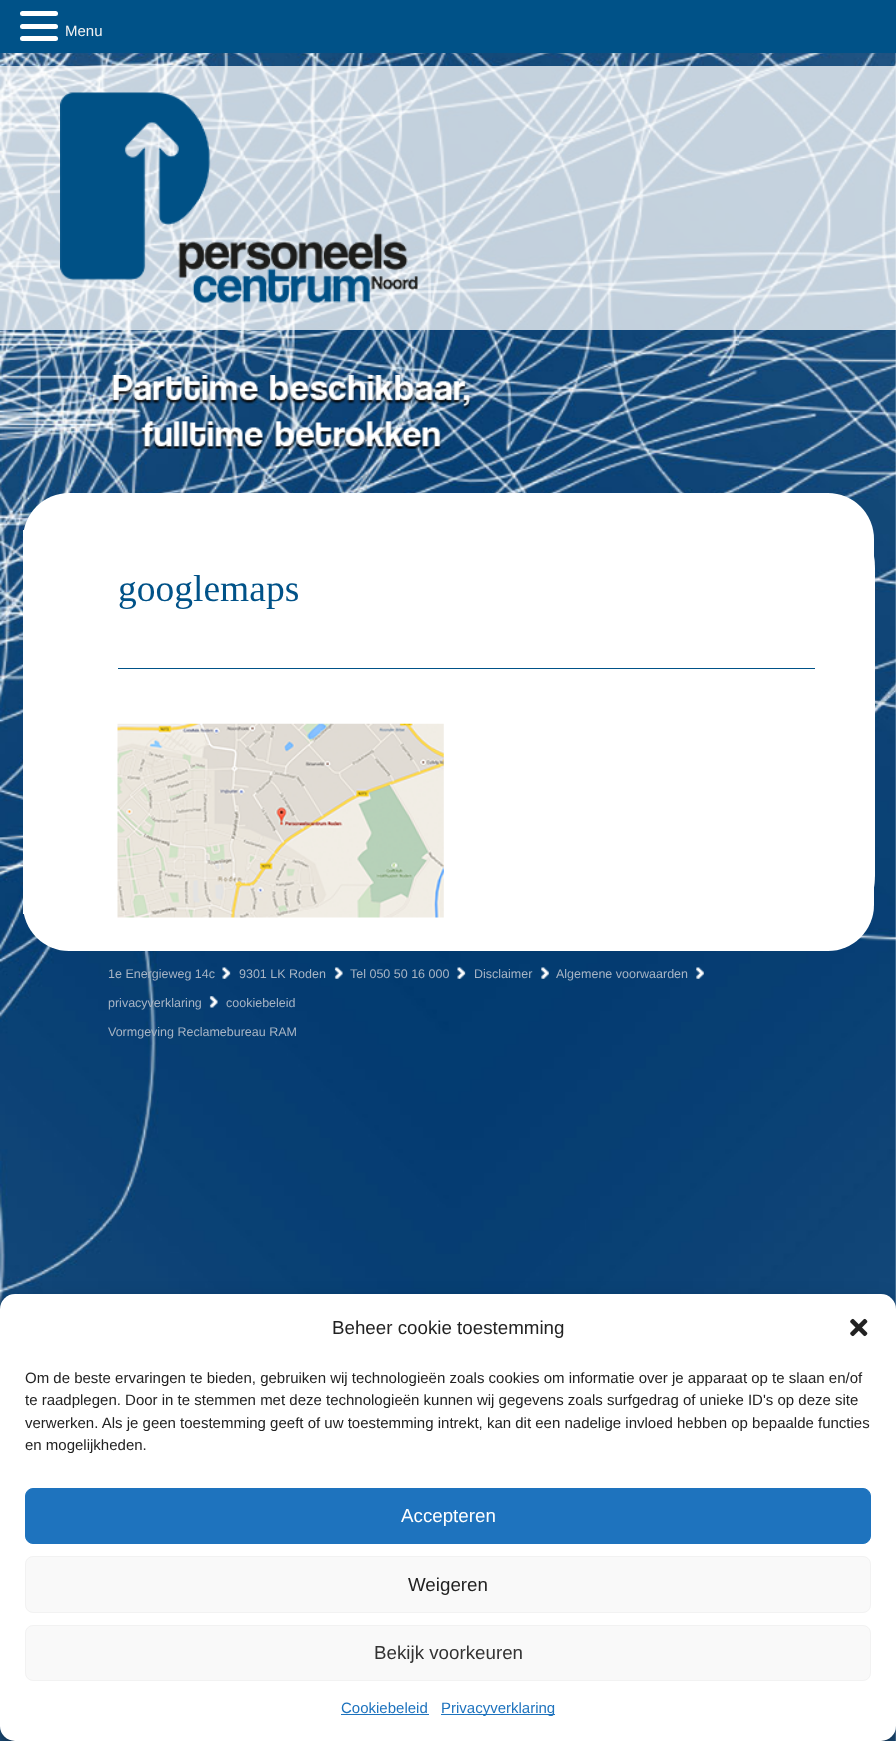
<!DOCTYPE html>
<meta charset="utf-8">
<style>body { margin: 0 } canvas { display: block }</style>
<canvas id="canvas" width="896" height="1741"></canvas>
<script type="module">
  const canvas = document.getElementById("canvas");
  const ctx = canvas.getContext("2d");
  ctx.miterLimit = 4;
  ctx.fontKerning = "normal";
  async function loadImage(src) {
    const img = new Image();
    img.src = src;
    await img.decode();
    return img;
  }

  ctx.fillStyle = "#ffffff";
  ctx.fillRect(0, 0, 896, 1741);
  ctx.drawImage(await loadImage("img1.png"), 0, 53, 896, 1688);
  ctx.fillStyle = "#005288";
  ctx.fillRect(0, 0, 896, 53);
  ctx.fillStyle = "#ffffff";
  ctx.beginPath();
  ctx.roundRect(20, 11, 38, 5, 2.5);
  ctx.fill();
  ctx.beginPath();
  ctx.roundRect(20, 24, 38, 5, 2.5);
  ctx.fill();
  ctx.beginPath();
  ctx.roundRect(20, 36, 38, 5, 2.5);
  ctx.fill();
  ctx.font = "15px Liberation Sans";
  ctx.fillStyle = "#f2f2f2";
  ctx.fillText("Menu", 65, 36);
  ctx.fillStyle = "rgba(255, 255, 255, 0.75)";
  ctx.fillRect(0, 66, 896, 264);
  ctx.drawImage(await loadImage("img2.png"), 60, 92, 358, 211);
  ctx.drawImage(await loadImage("img3.png"), 112, 375, 359, 74);
  ctx.fillStyle = "#ffffff";
  ctx.beginPath();
  ctx.roundRect(23, 493, 851, 458, 46);
  ctx.fill();
  ctx.beginPath();
  ctx.roundRect(23, 493, 852, 458, 75);
  ctx.fill();
  ctx.fillRect(23, 530, 1, 384);
  ctx.fillStyle = "#005288";
  ctx.fillRect(118, 668, 697, 1);
  ctx.font = "37.5px Liberation Serif";
  ctx.fillText("googlemaps", 118, 601);
  ctx.drawImage(await loadImage("img4.png"), 117, 723, 327, 195);
  ctx.font = "12.5px Liberation Sans";
  ctx.fillStyle = "#a7b4c4";
  ctx.fillText("1e Energieweg 14c", 108, 978);
  ctx.drawImage(await loadImage("img5.png"), 222, 967, 9, 12);
  ctx.fillText("9301 LK Roden", 239, 978);
  ctx.drawImage(await loadImage("img6.png"), 334, 967, 9, 12);
  ctx.fillText("Tel 050 50 16 000", 350, 978);
  ctx.drawImage(await loadImage("img7.png"), 457, 967, 9, 12);
  ctx.fillText("Disclaimer", 474, 978);
  ctx.drawImage(await loadImage("img8.png"), 541, 967, 8, 12);
  ctx.fillText("Algemene voorwaarden", 556, 978);
  ctx.drawImage(await loadImage("img9.png"), 696, 967, 8, 12);
  ctx.fillText("privacyverklaring", 108, 1007);
  ctx.drawImage(await loadImage("img10.png"), 209, 996, 9, 12);
  ctx.fillText("cookiebeleid", 226, 1007);
  ctx.fillText("Vormgeving Reclamebureau RAM", 108, 1036);
  ctx.fillStyle = "rgba(0, 0, 0, 0.23)";
  ctx.filter = "blur(4px)";
  ctx.beginPath();
  ctx.roundRect(0, 1301, 896, 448, 15);
  ctx.fill();
  ctx.filter = "none";
  ctx.fillStyle = "rgba(0, 0, 0, 0.19)";
  ctx.filter = "blur(12.5px)";
  ctx.beginPath();
  ctx.roundRect(0, 1306, 896, 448, 15);
  ctx.fill();
  ctx.filter = "none";
  ctx.fillStyle = "#ffffff";
  ctx.beginPath();
  ctx.roundRect(0, 1294, 896, 447, 15);
  ctx.fill();
  ctx.font = "18.75px Liberation Sans";
  ctx.fillStyle = "#222222";
  ctx.fillText("Beheer cookie toestemming", 332, 1334);
  ctx.drawImage(await loadImage("img11.png"), 850, 1318, 18, 19);
  ctx.font = "15px Liberation Sans";
  ctx.fillText("Om de beste ervaringen te bieden, gebruiken wij technologieën zoals cookies om informatie over je apparaat op te slaan en/of", 25, 1383);
  ctx.fillText("te raadplegen. Door in te stemmen met deze technologieën kunnen wij gegevens zoals surfgedrag of unieke ID's op deze site", 25, 1405);
  ctx.fillText("verwerken. Als je geen toestemming geeft of uw toestemming intrekt, kan dit een nadelige invloed hebben op bepaalde functies", 25, 1428);
  ctx.fillText("en mogelijkheden.", 25, 1450);
  ctx.fillStyle = "#1e73be";
  ctx.beginPath();
  ctx.roundRect(25.5, 1488.5, 845, 55, 7.5);
  ctx.fill();
  ctx.strokeStyle = "#1e73be";
  ctx.stroke();
  ctx.font = "18.75px Liberation Sans";
  ctx.fillStyle = "#ffffff";
  ctx.fillText("Accepteren", 401, 1522);
  ctx.fillStyle = "#f9f9f9";
  ctx.beginPath();
  ctx.roundRect(25.5, 1556.5, 845, 56, 7.5);
  ctx.fill();
  ctx.strokeStyle = "#f2f2f2";
  ctx.stroke();
  ctx.fillStyle = "#222222";
  ctx.fillText("Weigeren", 408, 1591);
  ctx.fillStyle = "#f9f9f9";
  ctx.beginPath();
  ctx.roundRect(25.5, 1625.5, 845, 55, 7.5);
  ctx.fill();
  ctx.stroke();
  ctx.fillStyle = "#333333";
  ctx.fillText("Bekijk voorkeuren", 374, 1659);
  ctx.font = "15px Liberation Sans";
  ctx.fillStyle = "#1e73be";
  ctx.fillText("Cookiebeleid", 341, 1713);
  ctx.fillRect(341, 1714, 88, 1);
  ctx.fillRect(441, 1714, 114, 1);
  ctx.fillText("Privacyverklaring", 441, 1713);
</script>
